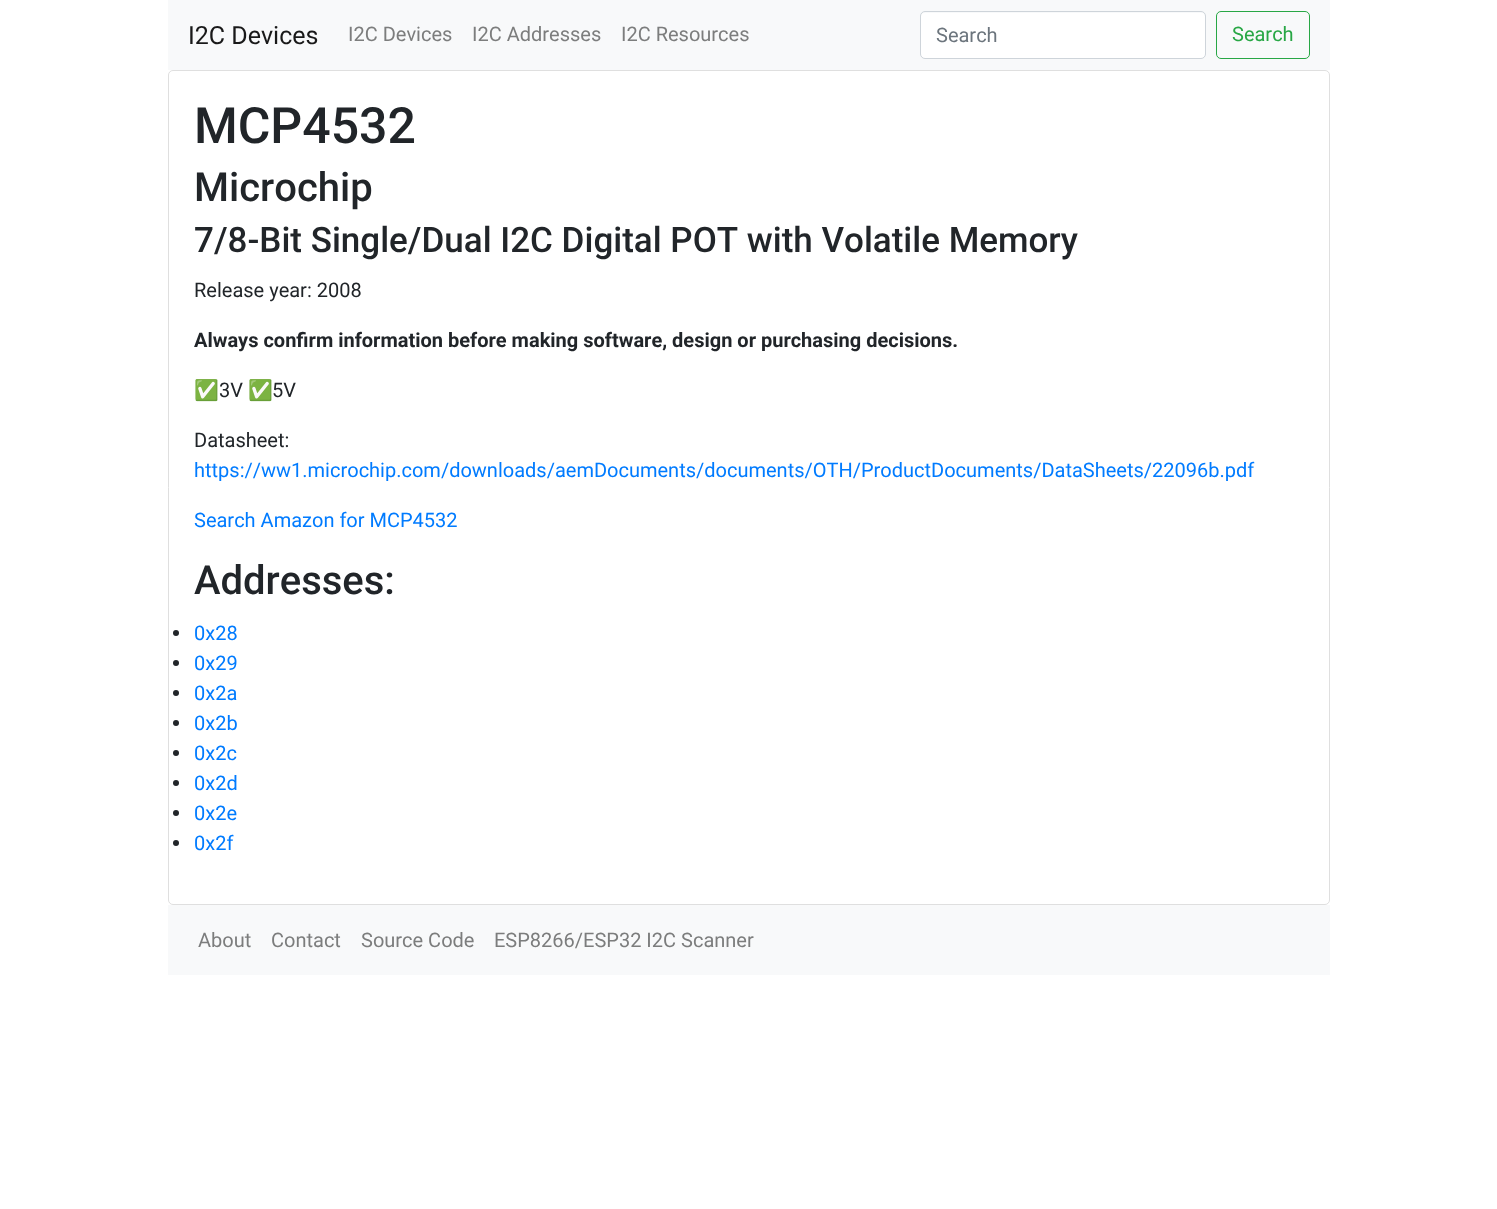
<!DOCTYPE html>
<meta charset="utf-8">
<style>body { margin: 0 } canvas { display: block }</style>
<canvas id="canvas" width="1497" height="1209"></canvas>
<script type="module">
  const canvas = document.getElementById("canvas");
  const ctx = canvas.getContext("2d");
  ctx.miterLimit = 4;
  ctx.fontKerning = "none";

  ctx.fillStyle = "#ffffff";
  ctx.fillRect(0, 0, 1497, 1209);
  ctx.fillStyle = "#f8f9fa";
  ctx.fillRect(168, 0, 1162, 70);
  ctx.font = "25px Roboto";
  ctx.fillStyle = "#191919";
  ctx.fillText("I2C Devices", 188, 44);
  ctx.font = "20px Roboto";
  ctx.fillStyle = "#7c7d7d";
  ctx.fillText("I2C Devices", 348, 41);
  ctx.fillText("I2C Addresses", 472, 41);
  ctx.fillText("I2C Resources", 621, 41);
  ctx.fillStyle = "#ffffff";
  ctx.beginPath();
  ctx.roundRect(921, 13, 284, 45, 4);
  ctx.fill();
  ctx.beginPath();
  ctx.roundRect(920.5, 11.5, 285, 47, 4.5);
  ctx.strokeStyle = "#ced4da";
  ctx.stroke();
  ctx.fillStyle = "#6c757d";
  ctx.fillText("Search", 936, 42);
  ctx.beginPath();
  ctx.roundRect(1216.5, 11.5, 93, 47, 4.5);
  ctx.strokeStyle = "#28a745";
  ctx.stroke();
  ctx.fillStyle = "#28a745";
  ctx.fillText("Search", 1232, 41);
  ctx.beginPath();
  ctx.roundRect(168.5, 70.5, 1161, 834, 4.5);
  ctx.strokeStyle = "#dfdfdf";
  ctx.stroke();
  ctx.font = "500 50px Roboto";
  ctx.fillStyle = "#212529";
  ctx.fillText("MCP4532", 194, 143);
  ctx.font = "500 40px Roboto";
  ctx.fillText("Microchip", 194, 201);
  ctx.font = "500 35px Roboto";
  ctx.fillText("7/8-Bit Single/Dual I2C Digital POT with Volatile Memory", 194, 252);
  ctx.font = "20px Roboto";
  ctx.fillText("Release year: 2008", 194, 297);
  ctx.font = "bold 20px Roboto";
  ctx.fillText("Always confirm information before making software, design or purchasing decisions.", 194, 347);
  ctx.font = "20px Noto Color Emoji";
  ctx.fillText("✅", 194, 397);
  ctx.font = "20px Roboto";
  ctx.fillText("3V", 219, 397);
  ctx.font = "20px Noto Color Emoji";
  ctx.fillText("✅", 248, 397);
  ctx.font = "20px Roboto";
  ctx.fillText("5V", 272, 397);
  ctx.fillText("Datasheet:", 194, 447);
  ctx.fillStyle = "#007bff";
  ctx.fillText("https://ww1.microchip.com/downloads/aemDocuments/documents/OTH/ProductDocuments/DataSheets/22096b.pdf", 194, 477);
  ctx.fillText("Search Amazon for MCP4532", 194, 527);
  ctx.font = "500 40px Roboto";
  ctx.fillStyle = "#212529";
  ctx.fillText("Addresses:", 194, 594);
  ctx.beginPath();
  ctx.arc(176, 633, 3, 0, Math.PI * 2);
  ctx.fill();
  ctx.font = "20px Roboto";
  ctx.fillStyle = "#007bff";
  ctx.fillText("0x28", 194, 640);
  ctx.fillStyle = "#212529";
  ctx.beginPath();
  ctx.arc(176, 663, 3, 0, Math.PI * 2);
  ctx.fill();
  ctx.fillStyle = "#007bff";
  ctx.fillText("0x29", 194, 670);
  ctx.fillStyle = "#212529";
  ctx.beginPath();
  ctx.arc(176, 693, 3, 0, Math.PI * 2);
  ctx.fill();
  ctx.fillStyle = "#007bff";
  ctx.fillText("0x2a", 194, 700);
  ctx.fillStyle = "#212529";
  ctx.beginPath();
  ctx.arc(176, 723, 3, 0, Math.PI * 2);
  ctx.fill();
  ctx.fillStyle = "#007bff";
  ctx.fillText("0x2b", 194, 730);
  ctx.fillStyle = "#212529";
  ctx.beginPath();
  ctx.arc(176, 753, 3, 0, Math.PI * 2);
  ctx.fill();
  ctx.fillStyle = "#007bff";
  ctx.fillText("0x2c", 194, 760);
  ctx.fillStyle = "#212529";
  ctx.beginPath();
  ctx.arc(176, 783, 3, 0, Math.PI * 2);
  ctx.fill();
  ctx.fillStyle = "#007bff";
  ctx.fillText("0x2d", 194, 790);
  ctx.fillStyle = "#212529";
  ctx.beginPath();
  ctx.arc(176, 813, 3, 0, Math.PI * 2);
  ctx.fill();
  ctx.fillStyle = "#007bff";
  ctx.fillText("0x2e", 194, 820);
  ctx.fillStyle = "#212529";
  ctx.beginPath();
  ctx.arc(176, 843, 3, 0, Math.PI * 2);
  ctx.fill();
  ctx.fillStyle = "#007bff";
  ctx.fillText("0x2f", 194, 850);
  ctx.fillStyle = "#f8f9fa";
  ctx.fillRect(168, 905, 1162, 70);
  ctx.fillStyle = "#7c7d7d";
  ctx.fillText("About", 198, 947);
  ctx.fillText("Contact", 271, 947);
  ctx.fillText("Source Code", 361, 947);
  ctx.fillText("ESP8266/ESP32 I2C Scanner", 494, 947);
</script>
